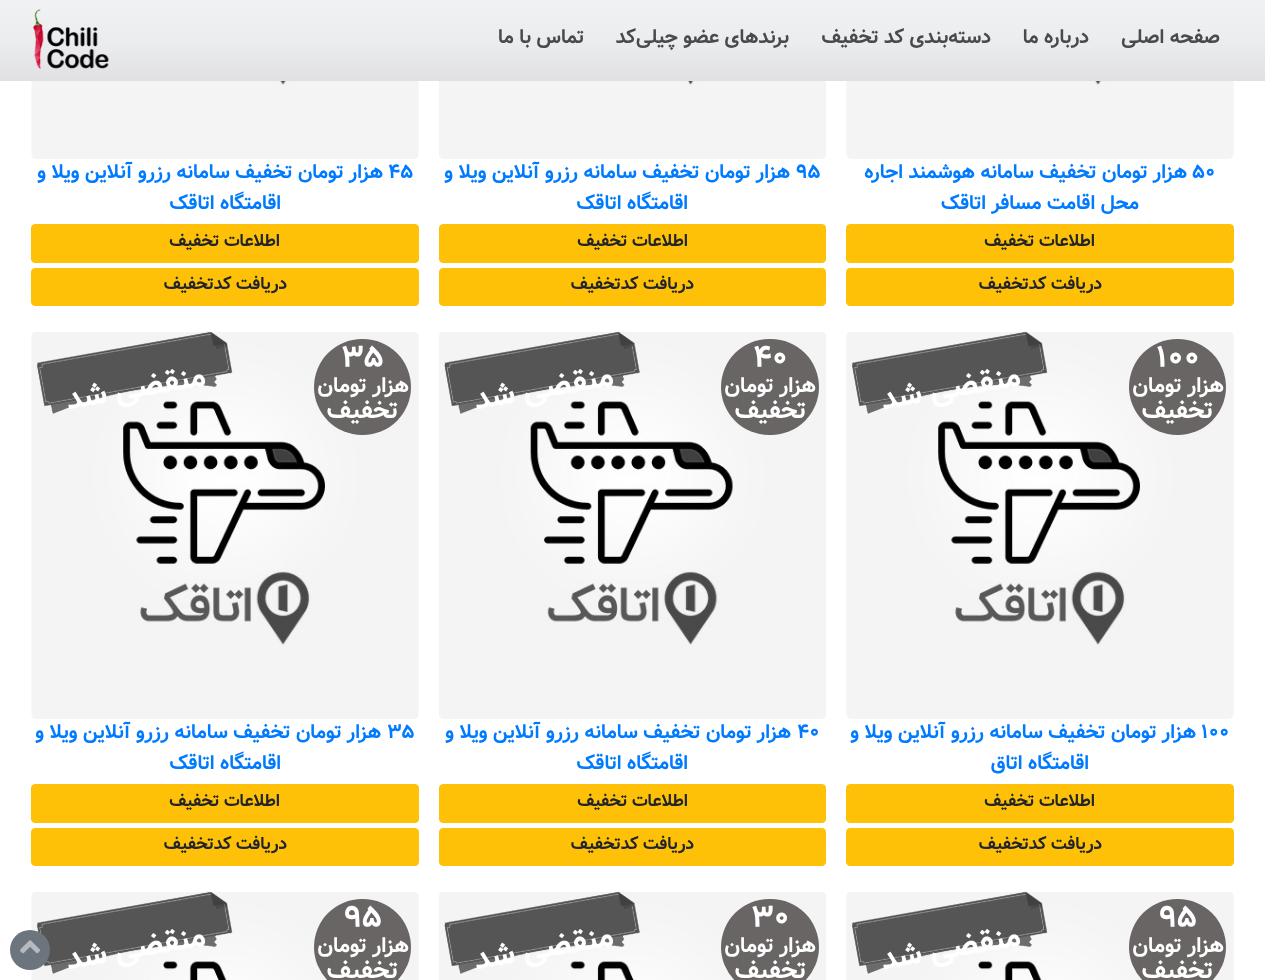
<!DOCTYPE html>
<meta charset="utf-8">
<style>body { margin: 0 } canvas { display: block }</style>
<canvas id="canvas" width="1265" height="980"></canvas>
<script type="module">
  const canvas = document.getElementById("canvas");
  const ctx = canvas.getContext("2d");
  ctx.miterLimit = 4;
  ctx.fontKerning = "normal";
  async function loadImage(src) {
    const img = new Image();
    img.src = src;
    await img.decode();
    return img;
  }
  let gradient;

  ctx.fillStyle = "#ffffff";
  ctx.fillRect(0, 0, 1265, 980);
  gradient = ctx.createLinearGradient(633, 0, 633, 81);
  gradient.addColorStop(0, "#f1f2f4");
  gradient.addColorStop(0.54, "#ebecee");
  gradient.addColorStop(1, "#e0e0e2");
  ctx.fillStyle = gradient;
  ctx.fillRect(0, 0, 1265, 81);
  ctx.direction = "rtl";
  ctx.font = "bold 20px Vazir";
  ctx.fillStyle = "#4a4a4a";
  ctx.fillText("صفحه اصلی", 1220, 43);
  ctx.fillText("درباره ما", 1089, 43);
  ctx.fillText("دسته‌بندی کد تخفیف", 991, 43);
  ctx.fillText("برندهای عضو چیلی‌کد", 789, 43);
  ctx.fillText("تماس با ما", 584, 43);
  ctx.drawImage(await loadImage("img1.png"), 33, 9, 76, 60);
  ctx.drawImage(await loadImage("img2.png"), 846, 81, 388, 78);
  ctx.direction = "ltr";
  ctx.fillStyle = "#007bff";
  ctx.fillText("۵۰", 1192, 178);
  ctx.direction = "rtl";
  ctx.fillText("هزار تومان تخفیف سامانه هوشمند اجاره", 1187, 178);
  ctx.fillText("محل اقامت مسافر اتاقک", 1139, 209);
  ctx.fillStyle = "#ffc107";
  ctx.beginPath();
  ctx.roundRect(846.5, 224.5, 387, 38, 3.5);
  ctx.fill();
  ctx.strokeStyle = "#ffc107";
  ctx.stroke();
  ctx.font = "bold 17.5px Vazir";
  ctx.fillStyle = "#212529";
  ctx.fillText("اطلاعات تخفیف", 1095, 246);
  ctx.fillStyle = "#ffc107";
  ctx.beginPath();
  ctx.roundRect(846.5, 268.5, 387, 37, 3.5);
  ctx.fill();
  ctx.stroke();
  ctx.fillStyle = "#212529";
  ctx.fillText("دریافت کد‌تخفیف", 1102, 289);
  ctx.drawImage(await loadImage("img3.png"), 439, 81, 387, 78);
  ctx.direction = "ltr";
  ctx.font = "bold 20px Vazir";
  ctx.fillStyle = "#007bff";
  ctx.fillText("۹۵", 796, 178);
  ctx.direction = "rtl";
  ctx.fillText("هزار تومان تخفیف سامانه رزرو آنلاین ویلا و", 790, 178);
  ctx.fillText("اقامتگاه اتاقک", 688, 209);
  ctx.fillStyle = "#ffc107";
  ctx.beginPath();
  ctx.roundRect(439.5, 224.5, 386, 38, 3.5);
  ctx.fill();
  ctx.stroke();
  ctx.font = "bold 17.5px Vazir";
  ctx.fillStyle = "#212529";
  ctx.fillText("اطلاعات تخفیف", 688, 246);
  ctx.fillStyle = "#ffc107";
  ctx.beginPath();
  ctx.roundRect(439.5, 268.5, 386, 37, 3.5);
  ctx.fill();
  ctx.stroke();
  ctx.fillStyle = "#212529";
  ctx.fillText("دریافت کد‌تخفیف", 694, 289);
  ctx.drawImage(await loadImage("img2.png"), 31, 81, 388, 78);
  ctx.direction = "ltr";
  ctx.font = "bold 20px Vazir";
  ctx.fillStyle = "#007bff";
  ctx.fillText("۴۵", 388, 178);
  ctx.direction = "rtl";
  ctx.fillText("هزار تومان تخفیف سامانه رزرو آنلاین ویلا و", 383, 178);
  ctx.fillText("اقامتگاه اتاقک", 281, 209);
  ctx.fillStyle = "#ffc107";
  ctx.beginPath();
  ctx.roundRect(31.5, 224.5, 387, 38, 3.5);
  ctx.fill();
  ctx.stroke();
  ctx.font = "bold 17.5px Vazir";
  ctx.fillStyle = "#212529";
  ctx.fillText("اطلاعات تخفیف", 280, 246);
  ctx.fillStyle = "#ffc107";
  ctx.beginPath();
  ctx.roundRect(31.5, 268.5, 387, 37, 3.5);
  ctx.fill();
  ctx.stroke();
  ctx.fillStyle = "#212529";
  ctx.fillText("دریافت کد‌تخفیف", 287, 289);
  ctx.drawImage(await loadImage("img4.png"), 846, 332, 388, 387);
  ctx.fillStyle = "#696565";
  ctx.beginPath();
  ctx.roundRect(1129, 339, 97, 96, 48);
  ctx.fill();
  ctx.direction = "ltr";
  ctx.font = "bold 31px Vazir";
  ctx.fillStyle = "#ffffff";
  ctx.fillText("۱۰۰", 1156, 367);
  ctx.direction = "rtl";
  ctx.font = "bold 21.5px Vazir";
  ctx.fillText("هزار تومان", 1224, 392);
  ctx.font = "bold 25px Vazir";
  ctx.fillText("تخفیف", 1213, 418);
  ctx.drawImage(await loadImage("img5.png"), 852, 331, 196, 83);
  ctx.font = "bold 31px Vazir";
  ctx.save();
  ctx.translate(1022, 385);
  ctx.rotate(-10 * Math.PI / 180);
  ctx.fillText("منقضی شد", 0, 0);
  ctx.restore();
  ctx.direction = "ltr";
  ctx.font = "bold 20px Vazir";
  ctx.fillStyle = "#007bff";
  ctx.fillText("۱۰۰", 1201, 738);
  ctx.direction = "rtl";
  ctx.fillText("هزار تومان تخفیف سامانه رزرو آنلاین ویلا و", 1196, 738);
  ctx.fillText("اقامتگاه اتاق", 1089, 769);
  ctx.fillStyle = "#ffc107";
  ctx.beginPath();
  ctx.roundRect(846.5, 784.5, 387, 38, 3.5);
  ctx.fill();
  ctx.stroke();
  ctx.font = "bold 17.5px Vazir";
  ctx.fillStyle = "#212529";
  ctx.fillText("اطلاعات تخفیف", 1095, 806);
  ctx.fillStyle = "#ffc107";
  ctx.beginPath();
  ctx.roundRect(846.5, 828.5, 387, 37, 3.5);
  ctx.fill();
  ctx.stroke();
  ctx.fillStyle = "#212529";
  ctx.fillText("دریافت کد‌تخفیف", 1102, 849);
  ctx.drawImage(await loadImage("img6.png"), 439, 332, 387, 387);
  ctx.fillStyle = "#696565";
  ctx.beginPath();
  ctx.roundRect(721, 339, 98, 96, 48);
  ctx.fill();
  ctx.direction = "ltr";
  ctx.font = "bold 31px Vazir";
  ctx.fillStyle = "#ffffff";
  ctx.fillText("۴۰", 753, 367);
  ctx.direction = "rtl";
  ctx.font = "bold 21.5px Vazir";
  ctx.fillText("هزار تومان", 816, 392);
  ctx.font = "bold 25px Vazir";
  ctx.fillText("تخفیف", 806, 418);
  ctx.drawImage(await loadImage("img7.png"), 444, 331, 196, 83);
  ctx.font = "bold 31px Vazir";
  ctx.save();
  ctx.translate(615, 385);
  ctx.rotate(-10 * Math.PI / 180);
  ctx.fillText("منقضی شد", 0, 0);
  ctx.restore();
  ctx.direction = "ltr";
  ctx.font = "bold 20px Vazir";
  ctx.fillStyle = "#007bff";
  ctx.fillText("۴۰", 797, 738);
  ctx.direction = "rtl";
  ctx.fillText("هزار تومان تخفیف سامانه رزرو آنلاین ویلا و", 791, 738);
  ctx.fillText("اقامتگاه اتاقک", 688, 769);
  ctx.fillStyle = "#ffc107";
  ctx.beginPath();
  ctx.roundRect(439.5, 784.5, 386, 38, 3.5);
  ctx.fill();
  ctx.stroke();
  ctx.font = "bold 17.5px Vazir";
  ctx.fillStyle = "#212529";
  ctx.fillText("اطلاعات تخفیف", 688, 806);
  ctx.fillStyle = "#ffc107";
  ctx.beginPath();
  ctx.roundRect(439.5, 828.5, 386, 37, 3.5);
  ctx.fill();
  ctx.stroke();
  ctx.fillStyle = "#212529";
  ctx.fillText("دریافت کد‌تخفیف", 694, 849);
  ctx.drawImage(await loadImage("img4.png"), 31, 332, 388, 387);
  ctx.fillStyle = "#696565";
  ctx.beginPath();
  ctx.roundRect(314, 339, 97, 96, 48);
  ctx.fill();
  ctx.direction = "ltr";
  ctx.font = "bold 31px Vazir";
  ctx.fillStyle = "#ffffff";
  ctx.fillText("۳۵", 341, 367);
  ctx.direction = "rtl";
  ctx.font = "bold 21.5px Vazir";
  ctx.fillText("هزار تومان", 409, 392);
  ctx.font = "bold 25px Vazir";
  ctx.fillText("تخفیف", 398, 418);
  ctx.drawImage(await loadImage("img5.png"), 37, 331, 196, 83);
  ctx.font = "bold 31px Vazir";
  ctx.save();
  ctx.translate(207, 385);
  ctx.rotate(-10 * Math.PI / 180);
  ctx.fillText("منقضی شد", 0, 0);
  ctx.restore();
  ctx.direction = "ltr";
  ctx.font = "bold 20px Vazir";
  ctx.fillStyle = "#007bff";
  ctx.fillText("۳۵", 387, 738);
  ctx.direction = "rtl";
  ctx.fillText("هزار تومان تخفیف سامانه رزرو آنلاین ویلا و", 381, 738);
  ctx.fillText("اقامتگاه اتاقک", 281, 769);
  ctx.fillStyle = "#ffc107";
  ctx.beginPath();
  ctx.roundRect(31.5, 784.5, 387, 38, 3.5);
  ctx.fill();
  ctx.stroke();
  ctx.font = "bold 17.5px Vazir";
  ctx.fillStyle = "#212529";
  ctx.fillText("اطلاعات تخفیف", 280, 806);
  ctx.fillStyle = "#ffc107";
  ctx.beginPath();
  ctx.roundRect(31.5, 828.5, 387, 37, 3.5);
  ctx.fill();
  ctx.stroke();
  ctx.fillStyle = "#212529";
  ctx.fillText("دریافت کد‌تخفیف", 287, 849);
  ctx.drawImage(await loadImage("img8.png"), 846, 892, 388, 88);
  ctx.fillStyle = "#696565";
  ctx.beginPath();
  ctx.roundRect(1129, 899, 97, 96, 48);
  ctx.fill();
  ctx.direction = "ltr";
  ctx.font = "bold 31px Vazir";
  ctx.fillStyle = "#ffffff";
  ctx.fillText("۹۵", 1159, 927);
  ctx.direction = "rtl";
  ctx.font = "bold 21.5px Vazir";
  ctx.fillText("هزار تومان", 1224, 952);
  ctx.font = "bold 25px Vazir";
  ctx.fillText("تخفیف", 1213, 978);
  ctx.drawImage(await loadImage("img5.png"), 852, 891, 196, 83);
  ctx.font = "bold 31px Vazir";
  ctx.save();
  ctx.translate(1022, 945);
  ctx.rotate(-10 * Math.PI / 180);
  ctx.fillText("منقضی شد", 0, 0);
  ctx.restore();
  ctx.drawImage(await loadImage("img9.png"), 439, 892, 387, 88);
  ctx.fillStyle = "#696565";
  ctx.beginPath();
  ctx.roundRect(721, 899, 98, 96, 48);
  ctx.fill();
  ctx.direction = "ltr";
  ctx.fillStyle = "#ffffff";
  ctx.fillText("۳۰", 751, 927);
  ctx.direction = "rtl";
  ctx.font = "bold 21.5px Vazir";
  ctx.fillText("هزار تومان", 816, 952);
  ctx.font = "bold 25px Vazir";
  ctx.fillText("تخفیف", 806, 978);
  ctx.drawImage(await loadImage("img7.png"), 444, 891, 196, 83);
  ctx.font = "bold 31px Vazir";
  ctx.save();
  ctx.translate(615, 945);
  ctx.rotate(-10 * Math.PI / 180);
  ctx.fillText("منقضی شد", 0, 0);
  ctx.restore();
  ctx.drawImage(await loadImage("img8.png"), 31, 892, 388, 88);
  ctx.fillStyle = "#696565";
  ctx.beginPath();
  ctx.roundRect(314, 899, 97, 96, 48);
  ctx.fill();
  ctx.direction = "ltr";
  ctx.fillStyle = "#ffffff";
  ctx.fillText("۹۵", 344, 927);
  ctx.direction = "rtl";
  ctx.font = "bold 21.5px Vazir";
  ctx.fillText("هزار تومان", 409, 952);
  ctx.font = "bold 25px Vazir";
  ctx.fillText("تخفیف", 398, 978);
  ctx.drawImage(await loadImage("img5.png"), 37, 891, 196, 83);
  ctx.font = "bold 31px Vazir";
  ctx.save();
  ctx.translate(207, 945);
  ctx.rotate(-10 * Math.PI / 180);
  ctx.fillText("منقضی شد", 0, 0);
  ctx.restore();
  ctx.fillStyle = "#6c757d";
  ctx.beginPath();
  ctx.arc(30, 950, 20, 0, Math.PI * 2);
  ctx.fill();
  ctx.drawImage(await loadImage("img10.png"), 20, 940, 20, 14);
</script>
